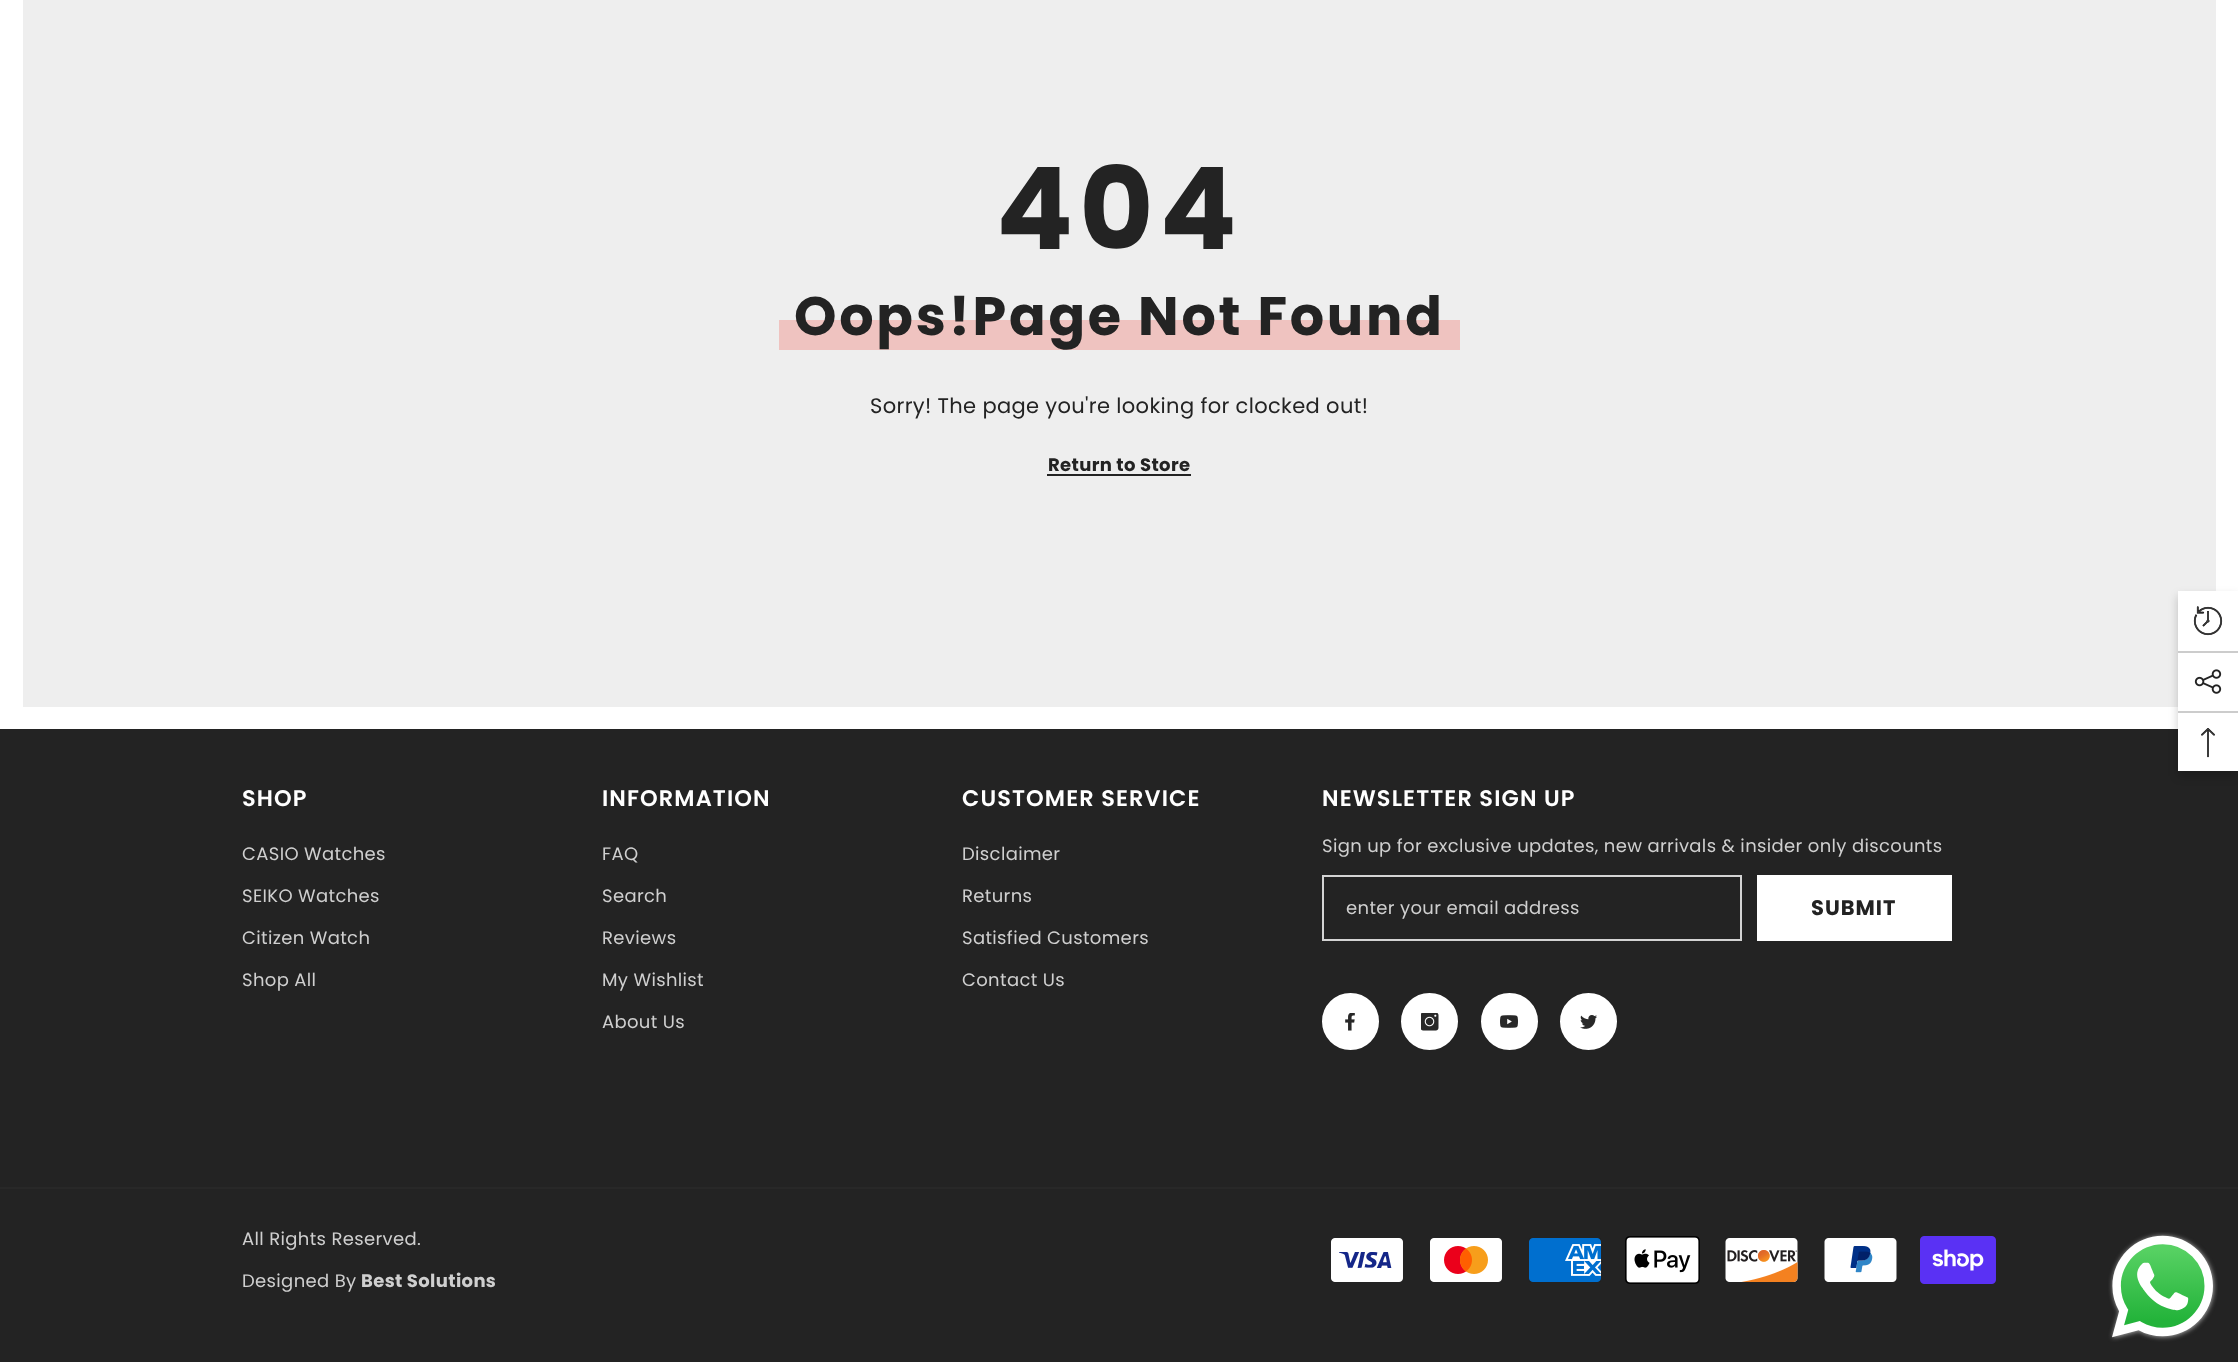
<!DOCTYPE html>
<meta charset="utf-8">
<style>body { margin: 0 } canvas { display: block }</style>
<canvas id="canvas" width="2238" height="1362"></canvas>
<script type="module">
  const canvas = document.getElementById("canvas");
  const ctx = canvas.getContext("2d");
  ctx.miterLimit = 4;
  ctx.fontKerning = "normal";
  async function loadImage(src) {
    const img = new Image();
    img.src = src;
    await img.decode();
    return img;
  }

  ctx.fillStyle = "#ffffff";
  ctx.fillRect(0, 0, 2238, 1362);
  ctx.fillStyle = "#eeeeee";
  ctx.fillRect(23, 0, 2193, 707);
  ctx.letterSpacing = "6px";
  ctx.font = "bold 114px Poppins";
  ctx.fillStyle = "#232323";
  ctx.fillText("404", 996, 249);
  ctx.fillStyle = "#efc3c0";
  ctx.fillRect(779, 320, 681, 30);
  ctx.letterSpacing = "2.75px";
  ctx.font = "bold 54px Poppins";
  ctx.fillStyle = "#232323";
  ctx.fillText("Oops!Page Not Found", 794, 335);
  ctx.letterSpacing = "0.35px";
  ctx.font = "21px Poppins";
  ctx.fillText("Sorry! The page you're looking for clocked out!", 870, 413);
  ctx.font = "bold 18px Poppins";
  ctx.fillText("Return to Store", 1048, 471);
  ctx.fillRect(1047, 474, 144, 2);
  ctx.fillRect(0, 729, 2238, 458);
  ctx.letterSpacing = "1.1px";
  ctx.font = "600 22.5px Poppins";
  ctx.fillStyle = "#ffffff";
  ctx.fillText("SHOP", 242, 806);
  ctx.letterSpacing = "0.35px";
  ctx.font = "18px Poppins";
  ctx.fillStyle = "#cfcfcf";
  ctx.fillText("CASIO Watches", 242, 860);
  ctx.fillText("SEIKO Watches", 242, 902);
  ctx.fillText("Citizen Watch", 242, 944);
  ctx.fillText("Shop All", 242, 986);
  ctx.letterSpacing = "1.1px";
  ctx.font = "600 22.5px Poppins";
  ctx.fillStyle = "#ffffff";
  ctx.fillText("INFORMATION", 602, 806);
  ctx.letterSpacing = "0.35px";
  ctx.font = "18px Poppins";
  ctx.fillStyle = "#cfcfcf";
  ctx.fillText("FAQ", 602, 860);
  ctx.fillText("Search", 602, 902);
  ctx.fillText("Reviews", 602, 944);
  ctx.fillText("My Wishlist", 602, 986);
  ctx.fillText("About Us", 602, 1028);
  ctx.letterSpacing = "1.1px";
  ctx.font = "600 22.5px Poppins";
  ctx.fillStyle = "#ffffff";
  ctx.fillText("CUSTOMER SERVICE", 962, 806);
  ctx.letterSpacing = "0.35px";
  ctx.font = "18px Poppins";
  ctx.fillStyle = "#cfcfcf";
  ctx.fillText("Disclaimer", 962, 860);
  ctx.fillText("Returns", 962, 902);
  ctx.fillText("Satisfied Customers", 962, 944);
  ctx.fillText("Contact Us", 962, 986);
  ctx.letterSpacing = "1.1px";
  ctx.font = "600 22.5px Poppins";
  ctx.fillStyle = "#ffffff";
  ctx.fillText("NEWSLETTER SIGN UP", 1322, 806);
  ctx.letterSpacing = "0.35px";
  ctx.font = "18px Poppins";
  ctx.fillStyle = "#cfcfcf";
  ctx.fillText("Sign up for exclusive updates, new arrivals & insider only discounts", 1322, 852);
  ctx.strokeStyle = "#d3d3d3";
  ctx.lineWidth = 2;
  ctx.strokeRect(1323, 876, 418, 64);
  ctx.fillText("enter your email address", 1346, 914);
  ctx.fillStyle = "#ffffff";
  ctx.fillRect(1757, 875, 195, 66);
  ctx.letterSpacing = "1px";
  ctx.font = "bold 21px Poppins";
  ctx.fillStyle = "#232323";
  ctx.fillText("SUBMIT", 1811, 915);
  ctx.fillStyle = "#ffffff";
  ctx.beginPath();
  ctx.arc(1350.5, 1021.5, 27.5, 0, Math.PI * 2);
  ctx.fill();
  ctx.strokeStyle = "#ffffff";
  ctx.stroke();
  ctx.drawImage(await loadImage("img1.png"), 1345, 1013, 10, 18);
  ctx.beginPath();
  ctx.arc(1429.5, 1021.5, 27.5, 0, Math.PI * 2);
  ctx.fill();
  ctx.stroke();
  ctx.drawImage(await loadImage("img2.png"), 1421, 1013, 18, 18);
  ctx.beginPath();
  ctx.arc(1509.5, 1021.5, 27.5, 0, Math.PI * 2);
  ctx.fill();
  ctx.stroke();
  ctx.drawImage(await loadImage("img3.png"), 1500, 1015, 18, 13);
  ctx.beginPath();
  ctx.arc(1588.5, 1021.5, 27.5, 0, Math.PI * 2);
  ctx.fill();
  ctx.stroke();
  ctx.drawImage(await loadImage("img4.png"), 1580, 1015, 17, 14);
  ctx.fillStyle = "#232323";
  ctx.fillRect(0, 1189, 2238, 173);
  ctx.fillStyle = "#282828";
  ctx.fillRect(0, 1187, 2238, 2);
  ctx.letterSpacing = "0.35px";
  ctx.font = "18px Poppins";
  ctx.fillStyle = "#cfcfcf";
  ctx.fillText("All Rights Reserved.", 242, 1245);
  ctx.fillText("Designed By", 242, 1287);
  ctx.font = "bold 18px Poppins";
  ctx.fillText("Best Solutions", 361, 1287);
  ctx.drawImage(await loadImage("img5.png"), 1331, 1238, 72, 44);
  ctx.drawImage(await loadImage("img6.png"), 1430, 1238, 72, 44);
  ctx.drawImage(await loadImage("img7.png"), 1529, 1238, 72, 44);
  ctx.drawImage(await loadImage("img8.png"), 1625, 1236, 75, 48);
  ctx.drawImage(await loadImage("img9.png"), 1725, 1238, 73, 44);
  ctx.drawImage(await loadImage("img10.png"), 1824, 1238, 73, 44);
  ctx.drawImage(await loadImage("img11.png"), 1920, 1236, 76, 48);
  ctx.fillStyle = "rgba(0, 0, 0, 0.2)";
  ctx.filter = "blur(5px)";
  ctx.beginPath();
  ctx.rect(2178, 596, 60, 180);
  ctx.fill();
  ctx.filter = "none";
  ctx.fillStyle = "#ffffff";
  ctx.fillRect(2178, 591, 60, 180);
  ctx.drawImage(await loadImage("img12.png"), 2193, 606, 30, 30);
  ctx.fillStyle = "#cccccc";
  ctx.fillRect(2178, 651, 60, 2);
  ctx.drawImage(await loadImage("img13.png"), 2194, 669, 28, 25);
  ctx.fillRect(2178, 711, 60, 2);
  ctx.drawImage(await loadImage("img14.png"), 2201, 728, 14, 30);
  ctx.drawImage(await loadImage("img15.png"), 2108, 1232, 110, 110);
</script>
